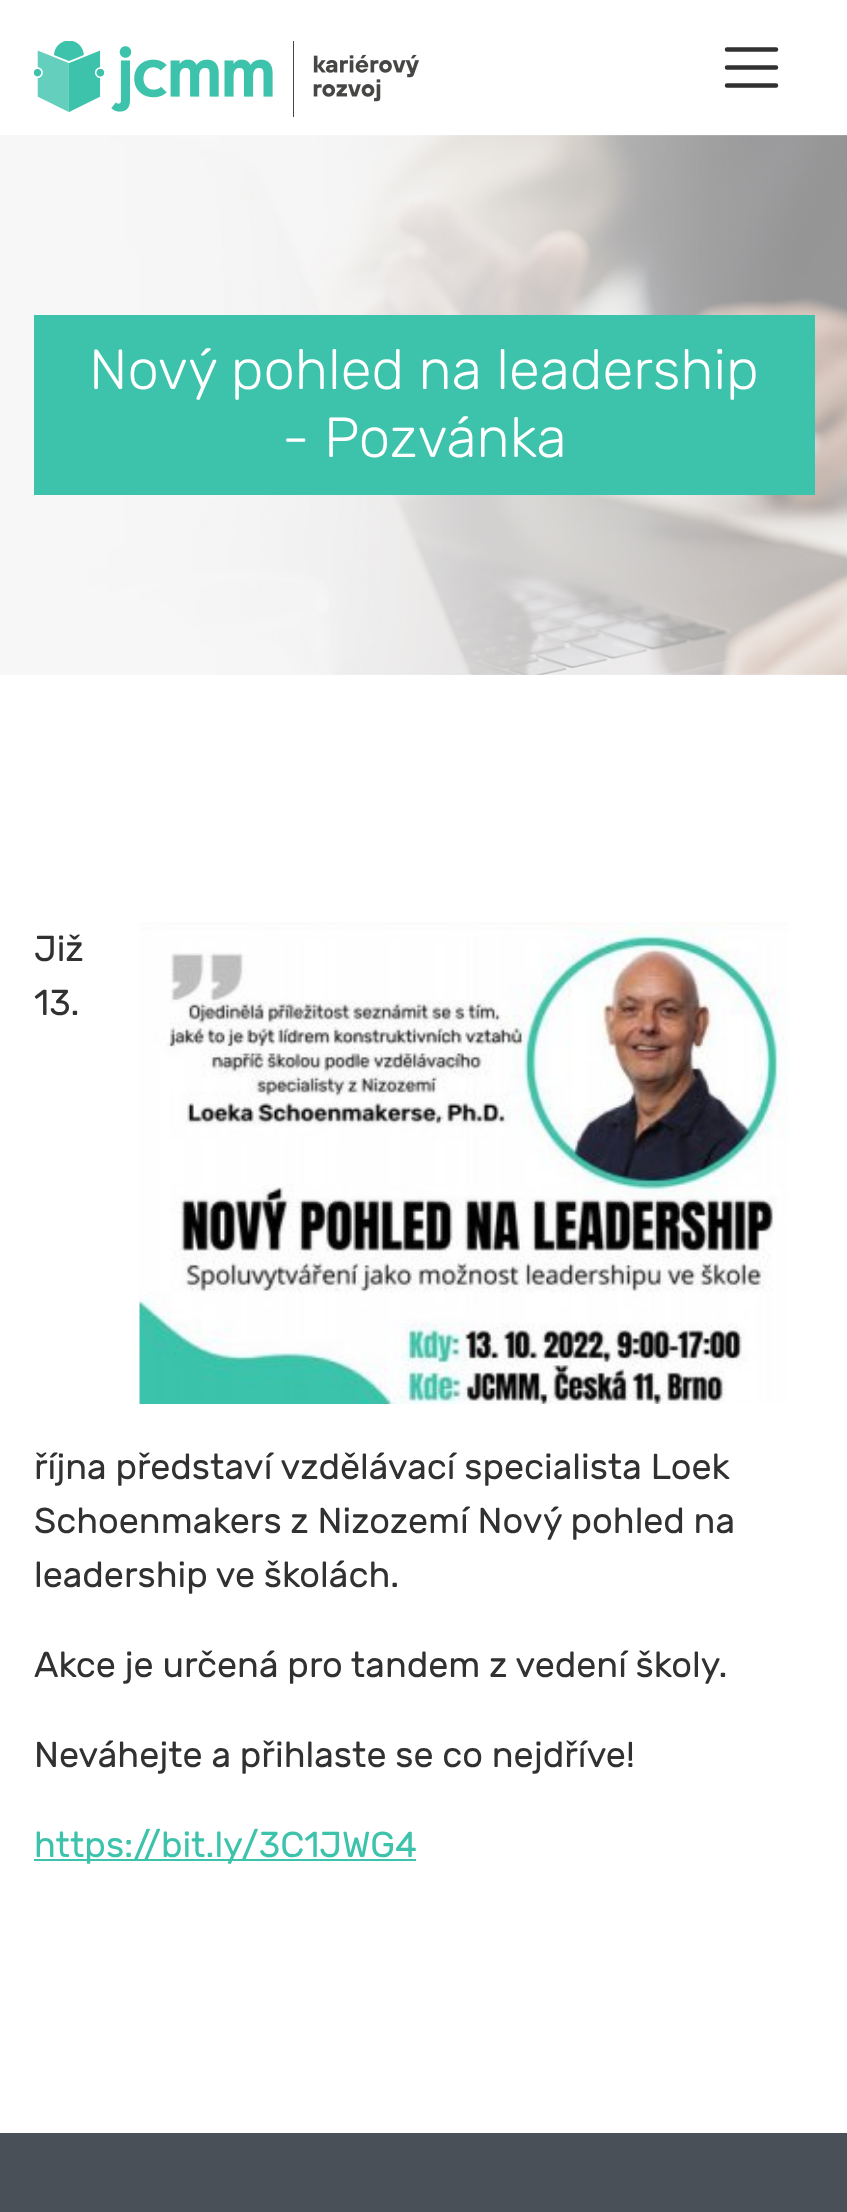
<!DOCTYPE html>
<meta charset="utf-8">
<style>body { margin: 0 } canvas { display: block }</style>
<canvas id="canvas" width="847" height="2212"></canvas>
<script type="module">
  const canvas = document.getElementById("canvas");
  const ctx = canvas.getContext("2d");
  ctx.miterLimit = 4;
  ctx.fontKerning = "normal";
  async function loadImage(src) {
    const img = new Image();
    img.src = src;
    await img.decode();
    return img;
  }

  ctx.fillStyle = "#ffffff";
  ctx.fillRect(0, 0, 847, 2212);
  ctx.drawImage(await loadImage("img1.png"), 34, 41, 385, 76);
  ctx.beginPath();
  ctx.moveTo(727, 49.5);
  ctx.lineTo(776, 49.5);
  ctx.moveTo(727, 67.5);
  ctx.lineTo(776, 67.5);
  ctx.moveTo(727, 85.5);
  ctx.lineTo(776, 85.5);
  ctx.strokeStyle = "#313131";
  ctx.lineWidth = 4.5;
  ctx.lineCap = "round";
  ctx.stroke();
  ctx.drawImage(await loadImage("img2.png"), 0, 135, 847, 540);
  ctx.fillStyle = "#3dc3ab";
  ctx.fillRect(34, 315, 781, 180);
  ctx.font = "300 56.25px Rubik";
  ctx.fillStyle = "#ffffff";
  ctx.fillText("Nový pohled na leadership", 89, 389);
  ctx.fillText("- Pozvánka", 282, 457);
  ctx.drawImage(await loadImage("img3.png"), 139, 922, 649, 482);
  ctx.font = "36px rubik";
  ctx.fillStyle = "#313131";
  ctx.fillText("Již", 34, 961);
  ctx.fillText("13.", 34, 1015);
  ctx.fillText("října představí vzdělávací specialista Loek", 34, 1479);
  ctx.fillText("Schoenmakers z Nizozemí Nový pohled na", 34, 1533);
  ctx.fillText("leadership ve školách.", 34, 1587);
  ctx.fillText("Akce je určená pro tandem z vedení školy.", 34, 1677);
  ctx.fillText("Neváhejte a přihlaste se co nejdříve!", 34, 1767);
  ctx.fillStyle = "#3dc3ab";
  ctx.fillRect(34, 1859, 382, 2);
  ctx.fillText("https://bit.ly/3C1JWG4", 34, 1857);
  ctx.fillStyle = "#495057";
  ctx.fillRect(0, 2133, 847, 79);
</script>
